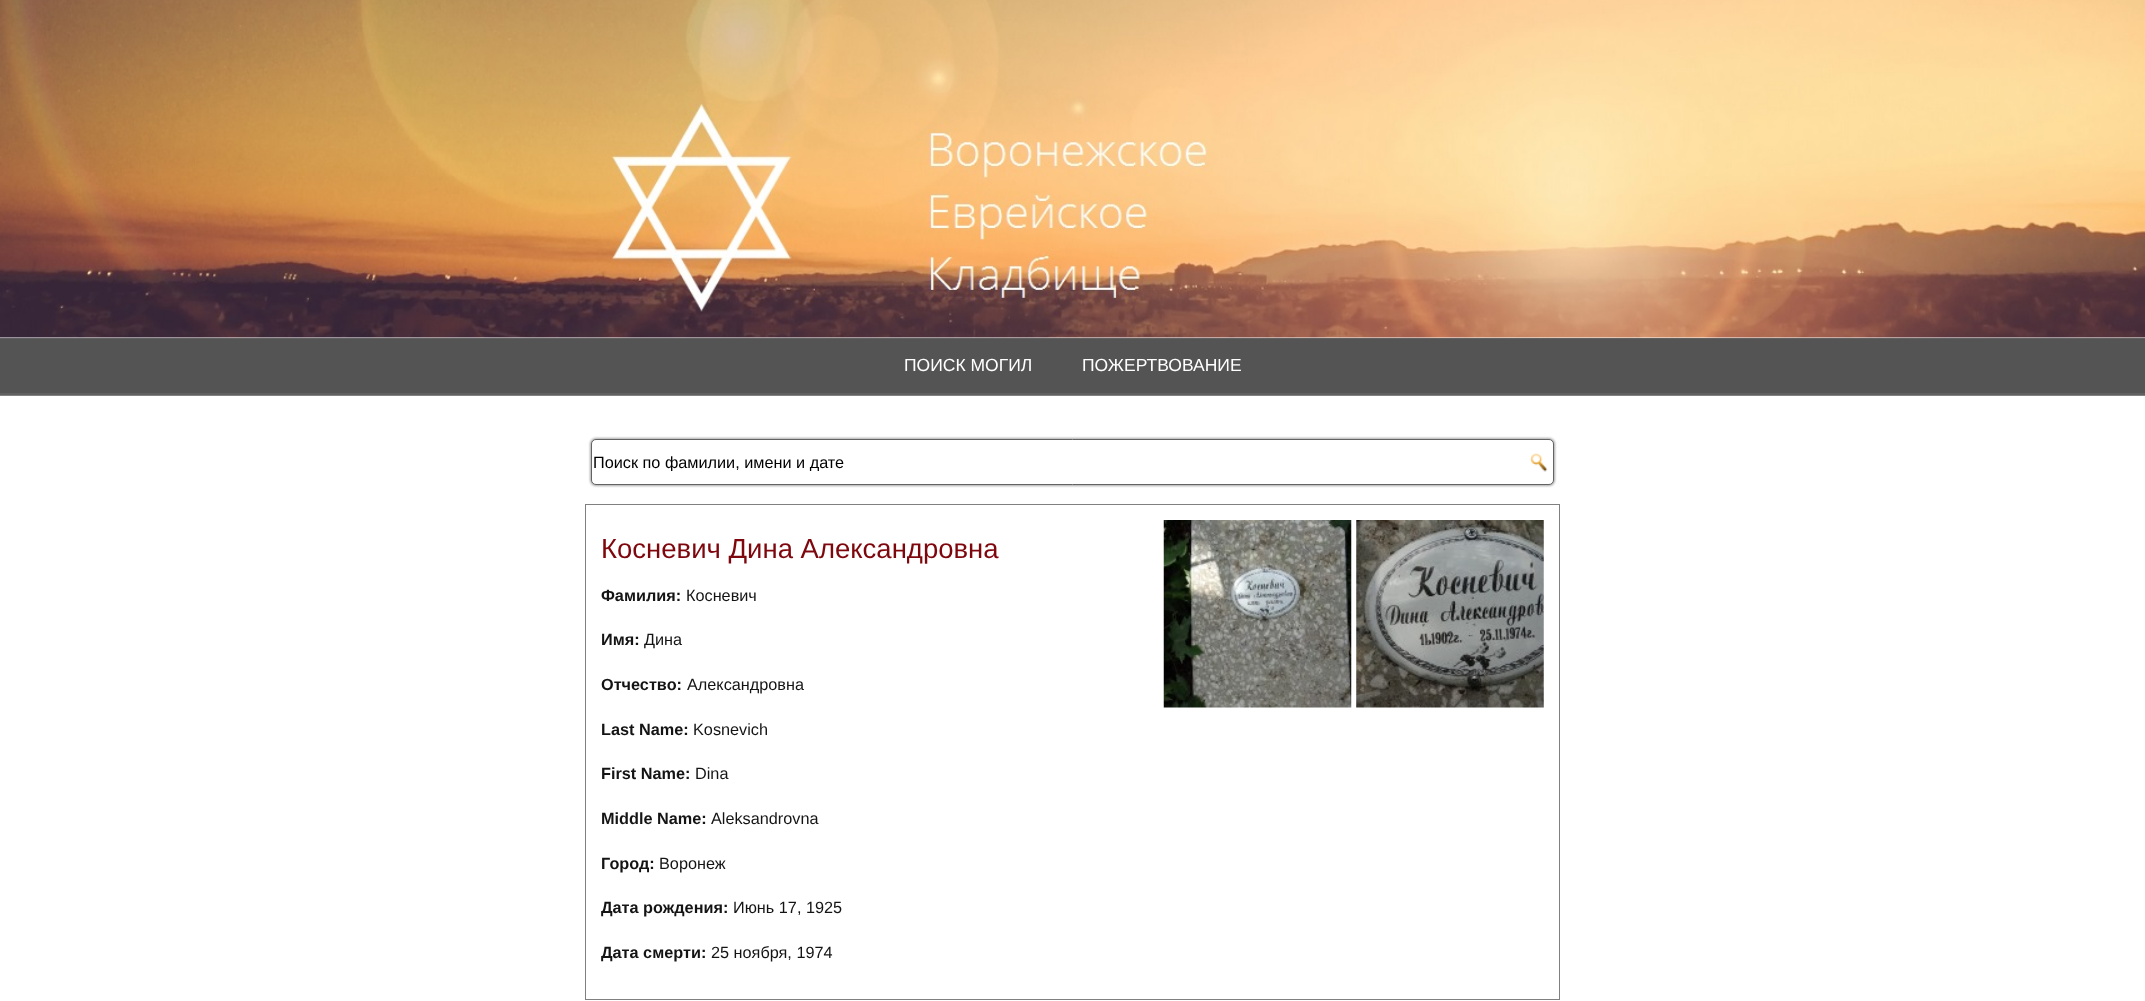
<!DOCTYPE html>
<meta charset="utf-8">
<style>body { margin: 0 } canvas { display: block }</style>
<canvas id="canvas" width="2145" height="1001"></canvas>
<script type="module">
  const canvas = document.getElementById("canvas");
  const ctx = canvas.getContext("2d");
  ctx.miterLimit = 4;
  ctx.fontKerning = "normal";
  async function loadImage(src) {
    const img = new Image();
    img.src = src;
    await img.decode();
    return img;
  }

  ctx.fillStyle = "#ffffff";
  ctx.fillRect(0, 0, 2145, 1001);
  ctx.fillStyle = "#828282";
  ctx.fillRect(0, 395, 2145, 1);
  ctx.drawImage(await loadImage("img1.png"), 0, 0, 2145, 338);
  ctx.fillStyle = "#545454";
  ctx.fillRect(0, 339, 2145, 54);
  ctx.fillStyle = "#606060";
  ctx.fillRect(0, 393, 2145, 2);
  ctx.fillRect(0, 338, 2145, 1);
  ctx.font = "17.5px Liberation Sans";
  ctx.fillStyle = "#ffffff";
  ctx.fillText("ПОИСК МОГИЛ", 904, 371);
  ctx.fillText("ПОЖЕРТВОВАНИЕ", 1082, 371);
  ctx.fillStyle = "rgba(0, 0, 0, 0.35)";
  ctx.filter = "blur(1px)";
  ctx.beginPath();
  ctx.roundRect(590, 438, 965, 48, 6);
  ctx.fill();
  ctx.filter = "none";
  ctx.fillStyle = "#ffffff";
  ctx.beginPath();
  ctx.roundRect(591.5, 439.5, 962, 45, 4.5);
  ctx.fill();
  ctx.strokeStyle = "#636363";
  ctx.stroke();
  ctx.save();
  ctx.beginPath();
  ctx.rect(593, 453, 960, 18);
  ctx.clip();
  ctx.font = "16.25px Liberation Sans";
  ctx.fillStyle = "#000000";
  ctx.fillText("Поиск по фамилии, имени и дате", 593, 468);
  ctx.restore();
  ctx.drawImage(await loadImage("img2.png"), 1530, 453, 18, 19);
  ctx.strokeStyle = "#808080";
  ctx.strokeRect(585.5, 504.5, 974, 495);
  ctx.font = "27.5px Liberation Sans";
  ctx.fillStyle = "#7e070d";
  ctx.fillText("Косневич Дина Александровна", 601, 558);
  ctx.font = "bold 16.25px Liberation Sans";
  ctx.fillStyle = "#141414";
  ctx.fillText("Фамилия:", 601, 601);
  ctx.font = "16.25px Liberation Sans";
  ctx.fillText("Косневич", 686, 601);
  ctx.font = "bold 16.25px Liberation Sans";
  ctx.fillText("Имя:", 601, 645);
  ctx.font = "16.25px Liberation Sans";
  ctx.fillText("Дина", 644, 645);
  ctx.font = "bold 16.25px Liberation Sans";
  ctx.fillText("Отчество:", 601, 690);
  ctx.font = "16.25px Liberation Sans";
  ctx.fillText("Александровна", 687, 690);
  ctx.font = "bold 16.25px Liberation Sans";
  ctx.fillText("Last Name:", 601, 735);
  ctx.font = "16.25px Liberation Sans";
  ctx.fillText("Kosnevich", 693, 735);
  ctx.font = "bold 16.25px Liberation Sans";
  ctx.fillText("First Name:", 601, 779);
  ctx.font = "16.25px Liberation Sans";
  ctx.fillText("Dina", 695, 779);
  ctx.font = "bold 16.25px Liberation Sans";
  ctx.fillText("Middle Name:", 601, 824);
  ctx.font = "16.25px Liberation Sans";
  ctx.fillText("Aleksandrovna", 711, 824);
  ctx.font = "bold 16.25px Liberation Sans";
  ctx.fillText("Город:", 601, 869);
  ctx.font = "16.25px Liberation Sans";
  ctx.fillText("Воронеж", 659, 869);
  ctx.font = "bold 16.25px Liberation Sans";
  ctx.fillText("Дата рождения:", 601, 913);
  ctx.font = "16.25px Liberation Sans";
  ctx.fillText("Июнь 17, 1925", 733, 913);
  ctx.font = "bold 16.25px Liberation Sans";
  ctx.fillText("Дата смерти:", 601, 958);
  ctx.font = "16.25px Liberation Sans";
  ctx.fillText("25 ноября, 1974", 711, 958);
  ctx.drawImage(await loadImage("img3.png"), 1163, 520, 189, 188);
  ctx.drawImage(await loadImage("img4.png"), 1356, 520, 188, 188);
</script>
